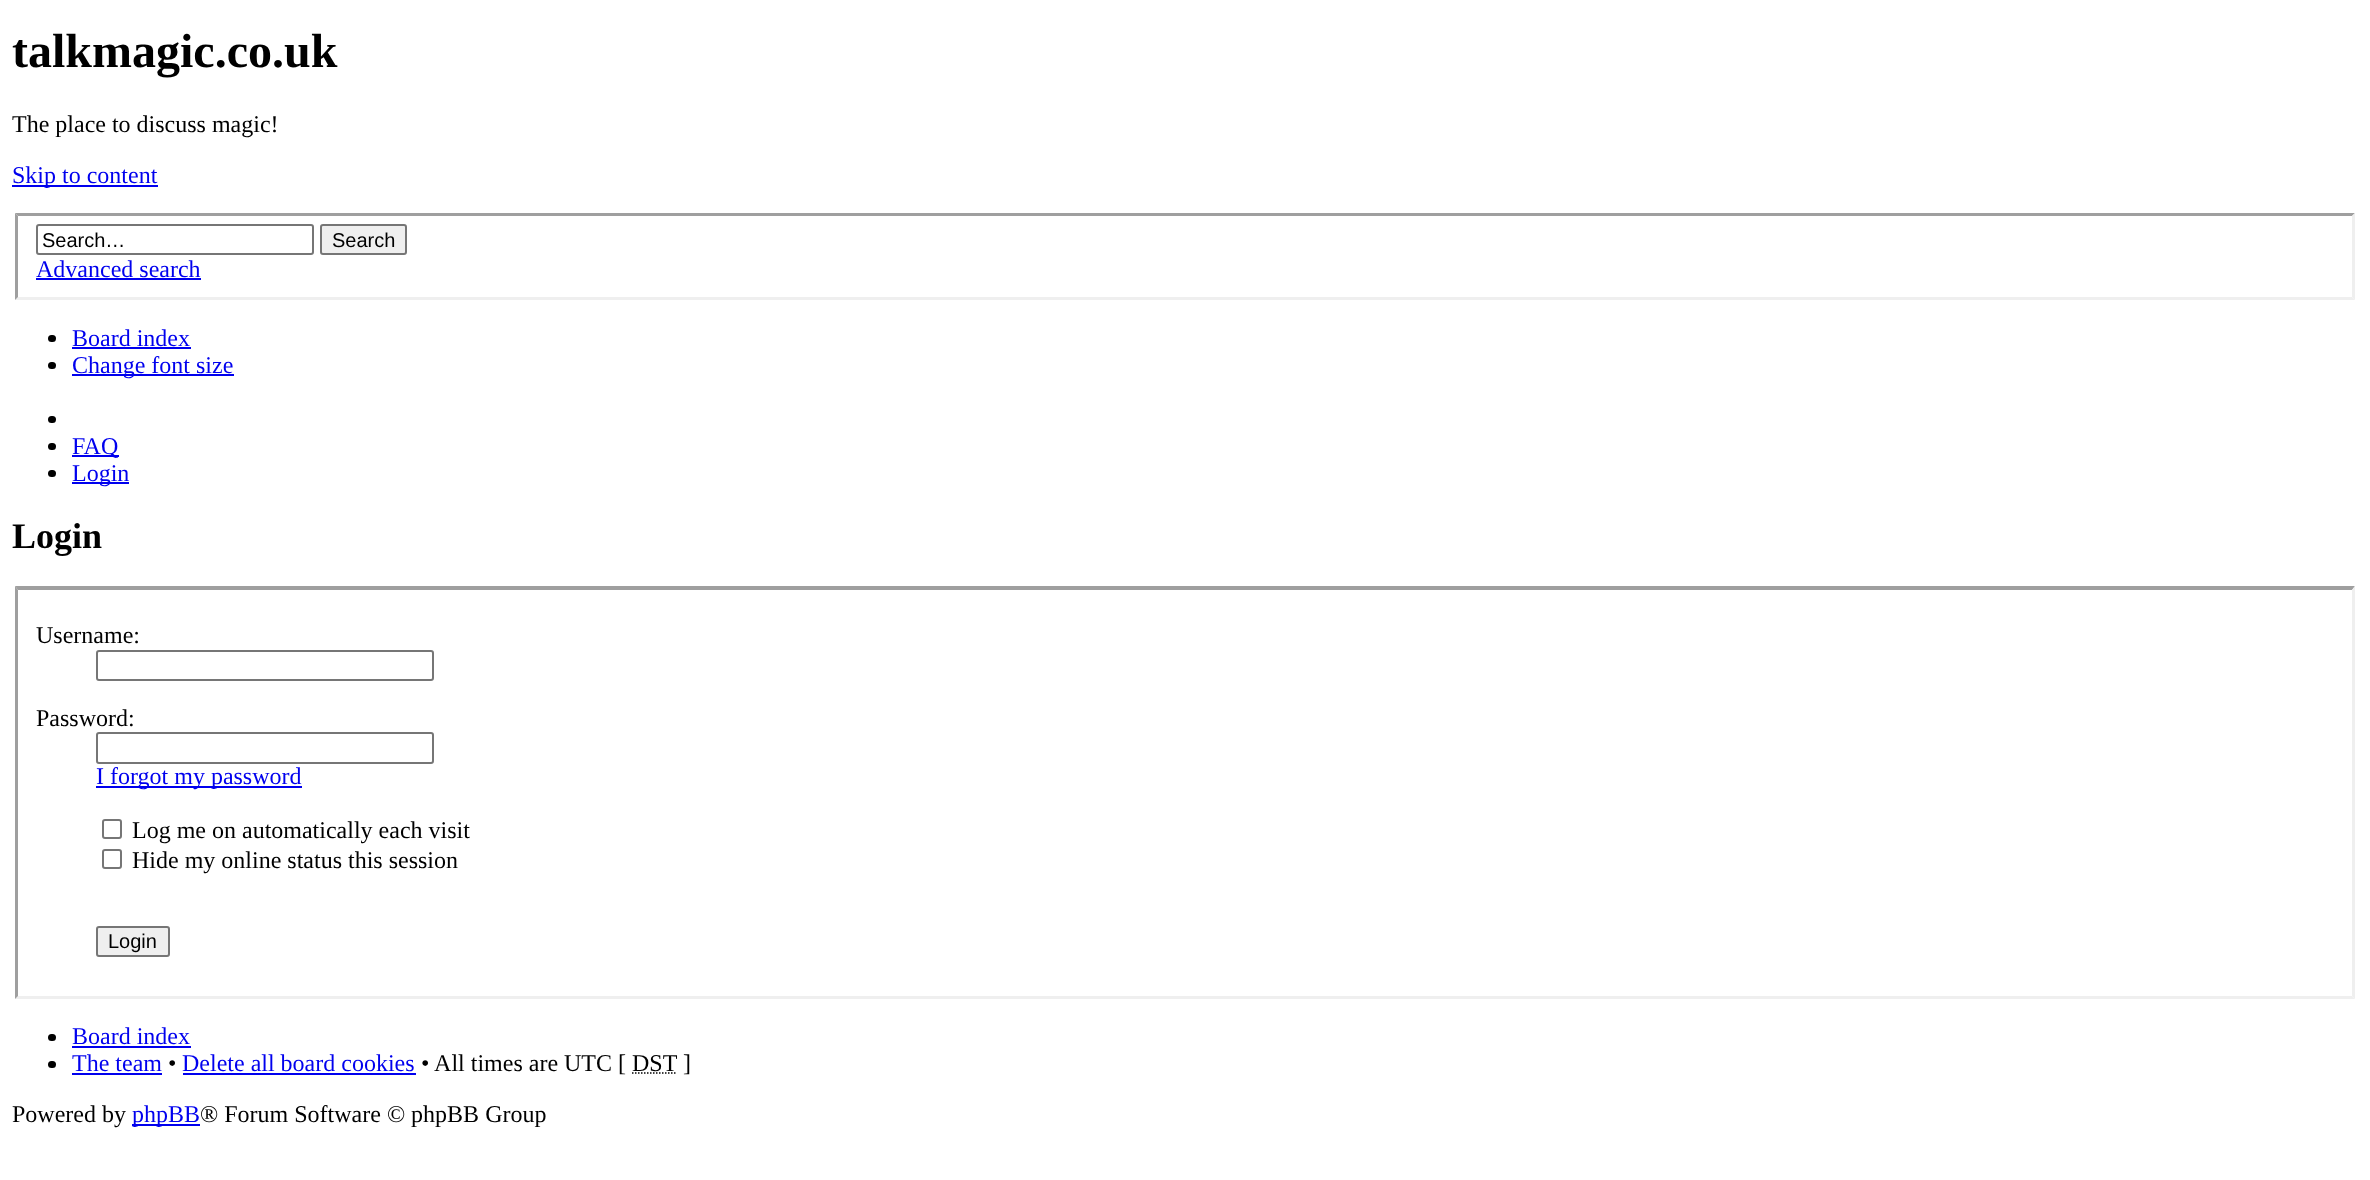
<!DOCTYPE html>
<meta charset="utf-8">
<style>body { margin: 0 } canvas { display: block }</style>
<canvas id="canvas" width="2370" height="1180"></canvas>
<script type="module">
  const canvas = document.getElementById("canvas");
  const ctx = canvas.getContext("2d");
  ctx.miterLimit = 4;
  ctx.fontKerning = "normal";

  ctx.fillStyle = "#ffffff";
  ctx.fillRect(0, 0, 2370, 1180);
  ctx.font = "bold 48px Liberation Serif";
  ctx.fillStyle = "#000000";
  ctx.fillText("talkmagic.co.uk", 12, 67);
  ctx.font = "24px Liberation Serif";
  ctx.fillText("The place to discuss magic!", 12, 132);
  ctx.fillStyle = "#0000ee";
  ctx.fillRect(12, 185, 146, 2);
  ctx.fillText("Skip to content", 12, 183);
  ctx.fillStyle = "#9f9f9f";
  ctx.beginPath();
  ctx.moveTo(15, 213);
  ctx.lineTo(2355, 213);
  ctx.lineTo(2352, 216);
  ctx.lineTo(18, 216);
  ctx.closePath();
  ctx.fill();
  ctx.fillStyle = "#efefef";
  ctx.beginPath();
  ctx.moveTo(2355, 213);
  ctx.lineTo(2355, 300);
  ctx.lineTo(2352, 297);
  ctx.lineTo(2352, 216);
  ctx.closePath();
  ctx.fill();
  ctx.beginPath();
  ctx.moveTo(2355, 300);
  ctx.lineTo(15, 300);
  ctx.lineTo(18, 297);
  ctx.lineTo(2352, 297);
  ctx.closePath();
  ctx.fill();
  ctx.fillStyle = "#9f9f9f";
  ctx.beginPath();
  ctx.moveTo(15, 300);
  ctx.lineTo(15, 213);
  ctx.lineTo(18, 216);
  ctx.lineTo(18, 297);
  ctx.closePath();
  ctx.fill();
  ctx.beginPath();
  ctx.roundRect(37, 225, 276, 29, 2);
  ctx.strokeStyle = "#767676";
  ctx.lineWidth = 2;
  ctx.stroke();
  ctx.font = "20px Liberation Sans";
  ctx.fillStyle = "#000000";
  ctx.fillText("Search…", 42, 247);
  ctx.fillStyle = "#efefef";
  ctx.beginPath();
  ctx.roundRect(321, 225, 85, 29, 2);
  ctx.fill();
  ctx.stroke();
  ctx.fillStyle = "#000000";
  ctx.fillText("Search", 332, 247);
  ctx.font = "24px Liberation Serif";
  ctx.fillStyle = "#0000ee";
  ctx.fillText("Advanced search", 36, 277);
  ctx.fillRect(36, 278, 165, 2);
  ctx.fillStyle = "#000000";
  ctx.beginPath();
  ctx.roundRect(48, 335, 8, 7, 3.5);
  ctx.fill();
  ctx.fillStyle = "#0000ee";
  ctx.fillText("Board index", 72, 346);
  ctx.fillRect(72, 347, 119, 2);
  ctx.fillStyle = "#000000";
  ctx.beginPath();
  ctx.roundRect(48, 362, 8, 7, 3.5);
  ctx.fill();
  ctx.fillStyle = "#0000ee";
  ctx.fillRect(72, 374, 162, 2);
  ctx.fillText("Change font size", 72, 373);
  ctx.fillStyle = "#000000";
  ctx.beginPath();
  ctx.roundRect(48, 416, 8, 7, 3.5);
  ctx.fill();
  ctx.beginPath();
  ctx.roundRect(48, 443, 8, 7, 3.5);
  ctx.fill();
  ctx.fillStyle = "#0000ee";
  ctx.fillRect(72, 455, 47, 2);
  ctx.fillText("FAQ", 72, 454);
  ctx.fillStyle = "#000000";
  ctx.beginPath();
  ctx.roundRect(48, 470, 8, 7, 3.5);
  ctx.fill();
  ctx.fillStyle = "#0000ee";
  ctx.fillRect(72, 482, 57, 2);
  ctx.fillText("Login", 72, 481);
  ctx.font = "bold 36px Liberation Serif";
  ctx.fillStyle = "#000000";
  ctx.fillText("Login", 12, 548);
  ctx.fillStyle = "#9f9f9f";
  ctx.beginPath();
  ctx.moveTo(15, 586);
  ctx.lineTo(2355, 586);
  ctx.lineTo(2352, 590);
  ctx.lineTo(18, 590);
  ctx.closePath();
  ctx.fill();
  ctx.fillStyle = "#efefef";
  ctx.beginPath();
  ctx.moveTo(2355, 586);
  ctx.lineTo(2355, 999);
  ctx.lineTo(2352, 996);
  ctx.lineTo(2352, 590);
  ctx.closePath();
  ctx.fill();
  ctx.beginPath();
  ctx.moveTo(2355, 999);
  ctx.lineTo(15, 999);
  ctx.lineTo(18, 996);
  ctx.lineTo(2352, 996);
  ctx.closePath();
  ctx.fill();
  ctx.fillStyle = "#9f9f9f";
  ctx.beginPath();
  ctx.moveTo(15, 999);
  ctx.lineTo(15, 586);
  ctx.lineTo(18, 590);
  ctx.lineTo(18, 996);
  ctx.closePath();
  ctx.fill();
  ctx.font = "24px Liberation Serif";
  ctx.fillStyle = "#000000";
  ctx.fillText("Username:", 36, 643);
  ctx.beginPath();
  ctx.roundRect(97, 651, 336, 29, 2);
  ctx.stroke();
  ctx.fillText("Password:", 36, 726);
  ctx.beginPath();
  ctx.roundRect(97, 733, 336, 30, 2);
  ctx.stroke();
  ctx.fillStyle = "#0000ee";
  ctx.fillRect(96, 786, 206, 2);
  ctx.fillText("I forgot my password", 96, 784);
  ctx.beginPath();
  ctx.roundRect(103, 820, 18, 18, 2);
  ctx.stroke();
  ctx.fillStyle = "#000000";
  ctx.fillText("Log me on automatically each visit", 132, 838);
  ctx.beginPath();
  ctx.roundRect(103, 850, 18, 18, 2);
  ctx.stroke();
  ctx.fillText("Hide my online status this session", 132, 868);
  ctx.fillStyle = "#efefef";
  ctx.beginPath();
  ctx.roundRect(97, 927, 72, 29, 2);
  ctx.fill();
  ctx.stroke();
  ctx.font = "20px Liberation Sans";
  ctx.fillStyle = "#000000";
  ctx.fillText("Login", 108, 948);
  ctx.beginPath();
  ctx.roundRect(48, 1034, 8, 7, 3.5);
  ctx.fill();
  ctx.font = "24px Liberation Serif";
  ctx.fillStyle = "#0000ee";
  ctx.fillText("Board index", 72, 1044);
  ctx.fillRect(72, 1046, 119, 2);
  ctx.fillStyle = "#000000";
  ctx.beginPath();
  ctx.roundRect(48, 1061, 8, 7, 3.5);
  ctx.fill();
  ctx.fillStyle = "#0000ee";
  ctx.fillText("The team", 72, 1071);
  ctx.fillRect(72, 1073, 90, 2);
  ctx.fillStyle = "#000000";
  ctx.fillText("•", 168, 1071);
  ctx.fillStyle = "#0000ee";
  ctx.fillText("Delete all board cookies", 182, 1071);
  ctx.fillRect(183, 1073, 233, 2);
  ctx.fillStyle = "#000000";
  ctx.fillText("• All times are UTC [ DST", 421, 1071);
  ctx.fillText("]", 683, 1071);
  ctx.beginPath();
  ctx.moveTo(632, 1073);
  ctx.lineTo(677, 1073);
  ctx.strokeStyle = "#000000";
  ctx.lineWidth = 1.5;
  ctx.setLineDash([1.5, 1.5]);
  ctx.stroke();
  ctx.fillText("Powered by", 12, 1122);
  ctx.fillStyle = "#0000ee";
  ctx.fillRect(132, 1124, 68, 2);
  ctx.fillText("phpBB", 132, 1122);
  ctx.fillStyle = "#000000";
  ctx.fillText("® Forum Software © phpBB Group", 200, 1122);
</script>
